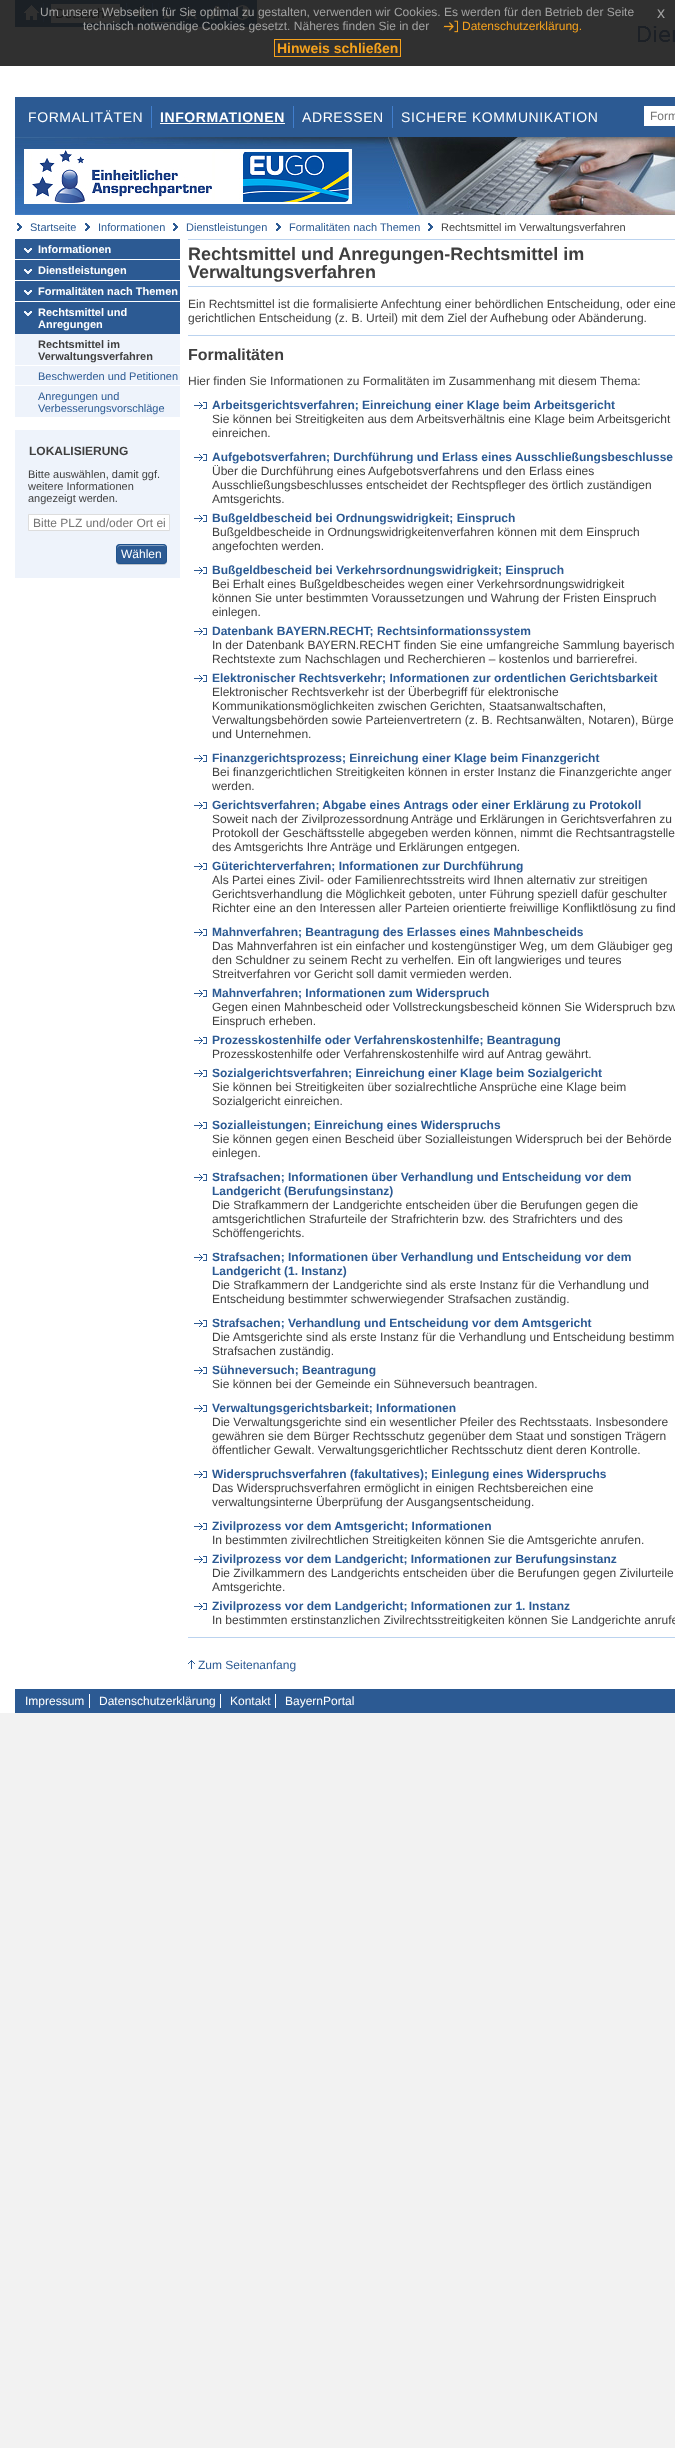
<!DOCTYPE html>
<meta charset="utf-8">
<style>body { margin: 0 } canvas { display: block }</style>
<canvas id="canvas" width="675" height="2448"></canvas>
<script type="module">
  const canvas = document.getElementById("canvas");
  const ctx = canvas.getContext("2d");
  ctx.miterLimit = 4;
  ctx.fontKerning = "normal";
  async function loadImage(src) {
    const img = new Image();
    img.src = src;
    await img.decode();
    return img;
  }

  ctx.fillStyle = "#f2f2f2";
  ctx.fillRect(0, 0, 675, 2448);
  ctx.fillStyle = "#303030";
  ctx.fillRect(0, 0, 675, 66);
  ctx.fillStyle = "#1b2025";
  ctx.fillRect(15, 0, 242, 27);
  ctx.fillStyle = "#1d232b";
  ctx.fillRect(43, 3, 1, 19);
  ctx.fillRect(126, 3, 1, 19);
  ctx.fillStyle = "#303030";
  ctx.fillRect(51, 4, 69, 19);
  ctx.beginPath();
  ctx.moveTo(107.5, 11.5);
  ctx.lineTo(111.5, 15.5);
  ctx.lineTo(115.5, 11.5);
  ctx.strokeStyle = "#171717";
  ctx.lineWidth = 2;
  ctx.stroke();
  ctx.font = "13.5px Liberation Sans";
  ctx.fillStyle = "#171717";
  ctx.fillText("Deutsch", 55, 18);
  ctx.fillStyle = "#1d232b";
  ctx.fillRect(152, 3, 1, 19);
  ctx.drawImage(await loadImage("img3.png"), 133, 5, 15, 15);
  ctx.drawImage(await loadImage("img4.png"), 163, 12, 7, 7);
  ctx.drawImage(await loadImage("img5.png"), 186, 9, 11, 10);
  ctx.fillRect(228, 3, 1, 19);
  ctx.drawImage(await loadImage("img6.png"), 210, 6, 14, 13);
  ctx.drawImage(await loadImage("img7.png"), 235, 5, 15, 15);
  ctx.font = "12px Liberation Sans";
  ctx.fillStyle = "#a2a2a2";
  ctx.fillText("Um unsere Webseiten für Sie optimal zu gestalten, verwenden wir Cookies. Es werden für den Betrieb der Seite", 40, 16);
  ctx.fillStyle = "#303030";
  ctx.fillRect(153, 22, 25, 1);
  ctx.fillStyle = "#a2a2a2";
  ctx.fillText("technisch notwendige Cookies gesetzt. Näheres finden Sie in der", 83, 30);
  ctx.drawImage(await loadImage("img1.png"), 443, 20, 15, 13);
  ctx.fillStyle = "#f6a21d";
  ctx.fillText("Datenschutzerklärung.", 462, 30);
  ctx.font = "16px Liberation Sans";
  ctx.fillStyle = "#a2a2a2";
  ctx.fillText("x", 657, 18);
  ctx.strokeStyle = "#f6a21d";
  ctx.lineWidth = 1;
  ctx.strokeRect(274.5, 39.5, 126, 17);
  ctx.font = "bold 14px Liberation Sans";
  ctx.fillStyle = "#f6a21d";
  ctx.fillText("Hinweis schließen", 277, 53);
  ctx.fillStyle = "#ffffff";
  ctx.fillRect(0, 66, 675, 1647);
  ctx.drawImage(await loadImage("img2.png"), 24, 5, 15, 15);
  ctx.drawImage(await loadImage("img8.png"), 638, 26, 37, 16);
  ctx.fillStyle = "#2c5a93";
  ctx.fillRect(15, 97, 660, 40);
  ctx.fillStyle = "#417ecd";
  ctx.fillRect(151, 106, 1, 22);
  ctx.letterSpacing = "0.6px";
  ctx.font = "14px Liberation Sans";
  ctx.fillStyle = "#ffffff";
  ctx.fillText("FORMALITÄTEN", 28, 122);
  ctx.fillStyle = "#417ecd";
  ctx.fillRect(293, 106, 1, 22);
  ctx.font = "bold 14px Liberation Sans";
  ctx.fillStyle = "#ffffff";
  ctx.fillText("INFORMATIONEN", 160, 122);
  ctx.fillRect(160, 123, 125, 1);
  ctx.fillStyle = "#417ecd";
  ctx.fillRect(392, 106, 1, 22);
  ctx.font = "14px Liberation Sans";
  ctx.fillStyle = "#ffffff";
  ctx.fillText("ADRESSEN", 302, 122);
  ctx.fillText("SICHERE KOMMUNIKATION", 401, 122);
  ctx.fillRect(644, 106, 31, 20);
  ctx.letterSpacing = "0px";
  ctx.font = "12px Liberation Sans";
  ctx.fillStyle = "#757575";
  ctx.fillText("Form", 650, 120);
  ctx.drawImage(await loadImage("img9.png"), 15, 137, 660, 78);
  ctx.drawImage(await loadImage("img10.png"), 17, 223, 5, 8);
  ctx.font = "11px Liberation Sans";
  ctx.fillStyle = "#2c5a93";
  ctx.fillText("Startseite", 30, 231);
  ctx.drawImage(await loadImage("img10.png"), 85, 223, 5, 8);
  ctx.fillText("Informationen", 98, 231);
  ctx.drawImage(await loadImage("img10.png"), 173, 223, 5, 8);
  ctx.fillText("Dienstleistungen", 186, 231);
  ctx.drawImage(await loadImage("img10.png"), 276, 223, 5, 8);
  ctx.fillText("Formalitäten nach Themen", 289, 231);
  ctx.drawImage(await loadImage("img10.png"), 428, 223, 5, 8);
  ctx.fillStyle = "#3f3f3f";
  ctx.fillText("Rechtsmittel im Verwaltungsverfahren", 441, 231);
  ctx.fillStyle = "#2c5a93";
  ctx.fillRect(15, 239, 165, 20);
  ctx.drawImage(await loadImage("img11.png"), 24, 248, 8, 5);
  ctx.font = "bold 11px Liberation Sans";
  ctx.fillStyle = "#ffffff";
  ctx.fillText("Informationen", 38, 253);
  ctx.fillStyle = "#2c5a93";
  ctx.fillRect(15, 260, 165, 20);
  ctx.drawImage(await loadImage("img11.png"), 24, 269, 8, 5);
  ctx.fillStyle = "#ffffff";
  ctx.fillText("Dienstleistungen", 38, 274);
  ctx.fillStyle = "#2c5a93";
  ctx.fillRect(15, 281, 165, 20);
  ctx.drawImage(await loadImage("img11.png"), 24, 290, 8, 5);
  ctx.fillStyle = "#ffffff";
  ctx.fillText("Formalitäten nach Themen", 38, 295);
  ctx.fillStyle = "#2c5a93";
  ctx.fillRect(15, 302, 165, 32);
  ctx.drawImage(await loadImage("img11.png"), 24, 311, 8, 5);
  ctx.fillStyle = "#ffffff";
  ctx.fillText("Rechtsmittel und", 38, 316);
  ctx.fillText("Anregungen", 38, 328);
  ctx.fillStyle = "#eef3fb";
  ctx.fillRect(15, 334, 165, 31);
  ctx.fillStyle = "#3f3f3f";
  ctx.fillText("Rechtsmittel im", 38, 348);
  ctx.fillText("Verwaltungsverfahren", 38, 360);
  ctx.fillStyle = "#eef3fb";
  ctx.fillRect(15, 366, 165, 19);
  ctx.font = "11px Liberation Sans";
  ctx.fillStyle = "#2c5a93";
  ctx.fillText("Beschwerden und Petitionen", 38, 380);
  ctx.fillStyle = "#eef3fb";
  ctx.fillRect(15, 386, 165, 31);
  ctx.fillStyle = "#2c5a93";
  ctx.fillText("Anregungen und", 38, 400);
  ctx.fillText("Verbesserungsvorschläge", 38, 412);
  ctx.fillStyle = "#eef3fb";
  ctx.fillRect(15, 430, 165, 148);
  ctx.font = "bold 12px Liberation Sans";
  ctx.fillStyle = "#3f3f3f";
  ctx.fillText("LOKALISIERUNG", 29, 455);
  ctx.font = "11px Liberation Sans";
  ctx.fillText("Bitte auswählen, damit ggf.", 28, 478);
  ctx.fillText("weitere Informationen", 28, 490);
  ctx.fillText("angezeigt werden.", 28, 502);
  ctx.fillStyle = "#ffffff";
  ctx.beginPath();
  ctx.rect(28.5, 514.5, 141, 16);
  ctx.fill();
  ctx.strokeStyle = "#dddddd";
  ctx.stroke();
  ctx.font = "12px Liberation Sans";
  ctx.fillStyle = "#757575";
  ctx.fillText("Bitte PLZ und/oder Ort ei", 33, 527);
  ctx.fillStyle = "rgba(0, 0, 0, 0.2)";
  ctx.filter = "blur(0.5px)";
  ctx.beginPath();
  ctx.roundRect(116, 545, 51, 20, 4);
  ctx.fill();
  ctx.filter = "none";
  ctx.fillStyle = "#2c5a93";
  ctx.beginPath();
  ctx.roundRect(116, 544, 51, 20, 4);
  ctx.fill();
  ctx.fillStyle = "#809cbe";
  ctx.beginPath();
  ctx.moveTo(120, 546);
  ctx.lineTo(164, 546);
  ctx.bezierCurveTo(165, 546, 166, 547, 166, 548);
  ctx.bezierCurveTo(166, 543, 159, 545, 156, 545);
  ctx.lineTo(127, 545);
  ctx.bezierCurveTo(122, 545, 117, 543, 117, 549);
  ctx.bezierCurveTo(117, 548, 118, 546, 120, 546);
  ctx.closePath();
  ctx.fill();
  ctx.beginPath();
  ctx.roundRect(116.5, 544.5, 50, 19, 3.5);
  ctx.strokeStyle = "#20538d";
  ctx.stroke();
  ctx.fillStyle = "#ffffff";
  ctx.fillText("Wählen", 121, 558);
  ctx.fillStyle = "#bbd3ef";
  ctx.fillRect(188, 239, 487, 1);
  ctx.fillRect(188, 286, 487, 1);
  ctx.font = "bold 18px Liberation Sans";
  ctx.fillStyle = "#3f3f3f";
  ctx.fillText("Rechtsmittel und Anregungen-Rechtsmittel im", 188, 260);
  ctx.fillText("Verwaltungsverfahren", 188, 278);
  ctx.fillStyle = "#bbd3ef";
  ctx.fillRect(188, 335, 487, 1);
  ctx.font = "12px Liberation Sans";
  ctx.fillStyle = "#3f3f3f";
  ctx.fillText("Ein Rechtsmittel ist die formalisierte Anfechtung einer behördlichen Entscheidung, oder eine", 188, 308);
  ctx.fillText("gerichtlichen Entscheidung (z. B. Urteil) mit dem Ziel der Aufhebung oder Abänderung.", 188, 322);
  ctx.fillStyle = "#bbd3ef";
  ctx.fillRect(188, 1637, 487, 1);
  ctx.font = "bold 16px Liberation Sans";
  ctx.fillStyle = "#3f3f3f";
  ctx.fillText("Formalitäten", 188, 360);
  ctx.font = "12px Liberation Sans";
  ctx.fillText("Hier finden Sie Informationen zu Formalitäten im Zusammenhang mit diesem Thema:", 188, 385);
  ctx.drawImage(await loadImage("img12.png"), 194, 402, 13, 7);
  ctx.font = "bold 12px Liberation Sans";
  ctx.fillStyle = "#2c5a93";
  ctx.fillText("Arbeitsgerichtsverfahren; Einreichung einer Klage beim Arbeitsgericht", 212, 409);
  ctx.font = "12px Liberation Sans";
  ctx.fillStyle = "#3f3f3f";
  ctx.fillText("Sie können bei Streitigkeiten aus dem Arbeitsverhältnis eine Klage beim Arbeitsgericht", 212, 423);
  ctx.fillText("einreichen.", 212, 437);
  ctx.drawImage(await loadImage("img12.png"), 194, 454, 13, 7);
  ctx.font = "bold 12px Liberation Sans";
  ctx.fillStyle = "#2c5a93";
  ctx.fillText("Aufgebotsverfahren; Durchführung und Erlass eines Ausschließungsbeschlusse", 212, 461);
  ctx.font = "12px Liberation Sans";
  ctx.fillStyle = "#3f3f3f";
  ctx.fillText("Über die Durchführung eines Aufgebotsverfahrens und den Erlass eines", 212, 475);
  ctx.fillText("Ausschließungsbeschlusses entscheidet der Rechtspfleger des örtlich zuständigen", 212, 489);
  ctx.fillText("Amtsgerichts.", 212, 503);
  ctx.drawImage(await loadImage("img12.png"), 194, 515, 13, 7);
  ctx.font = "bold 12px Liberation Sans";
  ctx.fillStyle = "#2c5a93";
  ctx.fillText("Bußgeldbescheid bei Ordnungswidrigkeit; Einspruch", 212, 522);
  ctx.font = "12px Liberation Sans";
  ctx.fillStyle = "#3f3f3f";
  ctx.fillText("Bußgeldbescheide in Ordnungswidrigkeitenverfahren können mit dem Einspruch", 212, 536);
  ctx.fillText("angefochten werden.", 212, 550);
  ctx.drawImage(await loadImage("img12.png"), 194, 567, 13, 7);
  ctx.font = "bold 12px Liberation Sans";
  ctx.fillStyle = "#2c5a93";
  ctx.fillText("Bußgeldbescheid bei Verkehrsordnungswidrigkeit; Einspruch", 212, 574);
  ctx.font = "12px Liberation Sans";
  ctx.fillStyle = "#3f3f3f";
  ctx.fillText("Bei Erhalt eines Bußgeldbescheides wegen einer Verkehrsordnungswidrigkeit", 212, 588);
  ctx.fillText("können Sie unter bestimmten Voraussetzungen und Wahrung der Fristen Einspruch", 212, 602);
  ctx.fillText("einlegen.", 212, 616);
  ctx.drawImage(await loadImage("img12.png"), 194, 628, 13, 7);
  ctx.font = "bold 12px Liberation Sans";
  ctx.fillStyle = "#2c5a93";
  ctx.fillText("Datenbank BAYERN.RECHT; Rechtsinformationssystem", 212, 635);
  ctx.font = "12px Liberation Sans";
  ctx.fillStyle = "#3f3f3f";
  ctx.fillText("In der Datenbank BAYERN.RECHT finden Sie eine umfangreiche Sammlung bayerisch", 212, 649);
  ctx.fillText("Rechtstexte zum Nachschlagen und Recherchieren – kostenlos und barrierefrei.", 212, 663);
  ctx.drawImage(await loadImage("img12.png"), 194, 675, 13, 7);
  ctx.font = "bold 12px Liberation Sans";
  ctx.fillStyle = "#2c5a93";
  ctx.fillText("Elektronischer Rechtsverkehr; Informationen zur ordentlichen Gerichtsbarkeit", 212, 682);
  ctx.font = "12px Liberation Sans";
  ctx.fillStyle = "#3f3f3f";
  ctx.fillText("Elektronischer Rechtsverkehr ist der Überbegriff für elektronische", 212, 696);
  ctx.fillText("Kommunikationsmöglichkeiten zwischen Gerichten, Staatsanwaltschaften,", 212, 710);
  ctx.fillText("Verwaltungsbehörden sowie Parteienvertretern (z. B. Rechtsanwälten, Notaren), Bürge", 212, 724);
  ctx.fillText("und Unternehmen.", 212, 738);
  ctx.drawImage(await loadImage("img12.png"), 194, 755, 13, 7);
  ctx.font = "bold 12px Liberation Sans";
  ctx.fillStyle = "#2c5a93";
  ctx.fillText("Finanzgerichtsprozess; Einreichung einer Klage beim Finanzgericht", 212, 762);
  ctx.font = "12px Liberation Sans";
  ctx.fillStyle = "#3f3f3f";
  ctx.fillText("Bei finanzgerichtlichen Streitigkeiten können in erster Instanz die Finanzgerichte anger", 212, 776);
  ctx.fillText("werden.", 212, 790);
  ctx.drawImage(await loadImage("img12.png"), 194, 802, 13, 7);
  ctx.font = "bold 12px Liberation Sans";
  ctx.fillStyle = "#2c5a93";
  ctx.fillText("Gerichtsverfahren; Abgabe eines Antrags oder einer Erklärung zu Protokoll", 212, 809);
  ctx.font = "12px Liberation Sans";
  ctx.fillStyle = "#3f3f3f";
  ctx.fillText("Soweit nach der Zivilprozessordnung", 212, 823);
  ctx.fillText("Anträge und Erklärungen in Gerichtsverfahren zu", 411, 823);
  ctx.fillText("Protokoll der Geschäftsstelle abgegeben werden können, nimmt die Rechtsantragstelle", 212, 837);
  ctx.fillText("des Amtsgerichts Ihre Anträge und Erklärungen entgegen.", 212, 851);
  ctx.drawImage(await loadImage("img12.png"), 194, 863, 13, 7);
  ctx.font = "bold 12px Liberation Sans";
  ctx.fillStyle = "#2c5a93";
  ctx.fillText("Güterichterverfahren; Informationen zur Durchführung", 212, 870);
  ctx.font = "12px Liberation Sans";
  ctx.fillStyle = "#3f3f3f";
  ctx.fillText("Als Partei eines Zivil- oder Familienrechtsstreits wird Ihnen alternativ zur streitigen", 212, 884);
  ctx.fillText("Gerichtsverhandlung die Möglichkeit geboten, unter Führung speziell dafür geschulter", 212, 898);
  ctx.fillText("Richter eine an den Interessen aller Parteien orientierte freiwillige Konfliktlösung zu find", 212, 912);
  ctx.drawImage(await loadImage("img12.png"), 194, 929, 13, 7);
  ctx.font = "bold 12px Liberation Sans";
  ctx.fillStyle = "#2c5a93";
  ctx.fillText("Mahnverfahren; Beantragung des Erlasses eines Mahnbescheids", 212, 936);
  ctx.font = "12px Liberation Sans";
  ctx.fillStyle = "#3f3f3f";
  ctx.fillText("Das Mahnverfahren ist ein einfacher und kostengünstiger Weg, um dem Gläubiger geg", 212, 950);
  ctx.fillText("den Schuldner zu seinem Recht zu verhelfen. Ein oft langwieriges und teures", 212, 964);
  ctx.fillText("Streitverfahren vor Gericht soll damit vermieden werden.", 212, 978);
  ctx.drawImage(await loadImage("img12.png"), 194, 990, 13, 7);
  ctx.font = "bold 12px Liberation Sans";
  ctx.fillStyle = "#2c5a93";
  ctx.fillText("Mahnverfahren; Informationen zum Widerspruch", 212, 997);
  ctx.font = "12px Liberation Sans";
  ctx.fillStyle = "#3f3f3f";
  ctx.fillText("Gegen einen Mahnbescheid oder Vollstreckungsbescheid können Sie Widerspruch bzw", 212, 1011);
  ctx.fillText("Einspruch erheben.", 212, 1025);
  ctx.drawImage(await loadImage("img12.png"), 194, 1037, 13, 7);
  ctx.font = "bold 12px Liberation Sans";
  ctx.fillStyle = "#2c5a93";
  ctx.fillText("Prozesskostenhilfe oder Verfahrenskostenhilfe; Beantragung", 212, 1044);
  ctx.font = "12px Liberation Sans";
  ctx.fillStyle = "#3f3f3f";
  ctx.fillText("Prozesskostenhilfe oder Verfahrenskostenhilfe wird auf Antrag gewährt.", 212, 1058);
  ctx.drawImage(await loadImage("img12.png"), 194, 1070, 13, 7);
  ctx.font = "bold 12px Liberation Sans";
  ctx.fillStyle = "#2c5a93";
  ctx.fillText("Sozialgerichtsverfahren; Einreichung einer Klage beim Sozialgericht", 212, 1077);
  ctx.font = "12px Liberation Sans";
  ctx.fillStyle = "#3f3f3f";
  ctx.fillText("Sie können bei Streitigkeiten über sozialrechtliche Ansprüche eine Klage beim", 212, 1091);
  ctx.fillText("Sozialgericht einreichen.", 212, 1105);
  ctx.drawImage(await loadImage("img12.png"), 194, 1122, 13, 7);
  ctx.font = "bold 12px Liberation Sans";
  ctx.fillStyle = "#2c5a93";
  ctx.fillText("Sozialleistungen; Einreichung eines Widerspruchs", 212, 1129);
  ctx.font = "12px Liberation Sans";
  ctx.fillStyle = "#3f3f3f";
  ctx.fillText("Sie können gegen einen Bescheid über Sozialleistungen Widerspruch bei der Behörde", 212, 1143);
  ctx.fillText("einlegen.", 212, 1157);
  ctx.drawImage(await loadImage("img12.png"), 194, 1174, 13, 7);
  ctx.font = "bold 12px Liberation Sans";
  ctx.fillStyle = "#2c5a93";
  ctx.fillText("Strafsachen; Informationen über Verhandlung und Entscheidung vor dem", 212, 1181);
  ctx.fillText("Landgericht (Berufungsinstanz)", 212, 1195);
  ctx.font = "12px Liberation Sans";
  ctx.fillStyle = "#3f3f3f";
  ctx.fillText("Die Strafkammern der Landgerichte entscheiden über die Berufungen gegen die", 212, 1209);
  ctx.fillText("amtsgerichtlichen Strafurteile der Strafrichterin bzw. des Strafrichters und des", 212, 1223);
  ctx.fillText("Schöffengerichts.", 212, 1237);
  ctx.drawImage(await loadImage("img12.png"), 194, 1254, 13, 7);
  ctx.font = "bold 12px Liberation Sans";
  ctx.fillStyle = "#2c5a93";
  ctx.fillText("Strafsachen; Informationen über Verhandlung und Entscheidung vor dem", 212, 1261);
  ctx.fillText("Landgericht (1. Instanz)", 212, 1275);
  ctx.font = "12px Liberation Sans";
  ctx.fillStyle = "#3f3f3f";
  ctx.fillText("Die Strafkammern der Landgerichte sind als erste Instanz für die Verhandlung und", 212, 1289);
  ctx.fillText("Entscheidung bestimmter schwerwiegender Strafsachen zuständig.", 212, 1303);
  ctx.drawImage(await loadImage("img12.png"), 194, 1320, 13, 7);
  ctx.font = "bold 12px Liberation Sans";
  ctx.fillStyle = "#2c5a93";
  ctx.fillText("Strafsachen; Verhandlung und Entscheidung vor dem Amtsgericht", 212, 1327);
  ctx.font = "12px Liberation Sans";
  ctx.fillStyle = "#3f3f3f";
  ctx.fillText("Die Amtsgerichte sind als erste Instanz für die Verhandlung und Entscheidung bestimm", 212, 1341);
  ctx.fillText("Strafsachen zuständig.", 212, 1355);
  ctx.drawImage(await loadImage("img12.png"), 194, 1367, 13, 7);
  ctx.font = "bold 12px Liberation Sans";
  ctx.fillStyle = "#2c5a93";
  ctx.fillText("Sühneversuch; Beantragung", 212, 1374);
  ctx.font = "12px Liberation Sans";
  ctx.fillStyle = "#3f3f3f";
  ctx.fillText("Sie können bei der Gemeinde ein Sühneversuch beantragen.", 212, 1388);
  ctx.drawImage(await loadImage("img12.png"), 194, 1405, 13, 7);
  ctx.font = "bold 12px Liberation Sans";
  ctx.fillStyle = "#2c5a93";
  ctx.fillText("Verwaltungsgerichtsbarkeit; Informationen", 212, 1412);
  ctx.font = "12px Liberation Sans";
  ctx.fillStyle = "#3f3f3f";
  ctx.fillText("Die Verwaltungsgerichte sind ein wesentlicher Pfeiler des Rechtsstaats. Insbesondere", 212, 1426);
  ctx.fillText("gewähren sie dem Bürger Rechtsschutz gegenüber dem Staat und sonstigen Trägern", 212, 1440);
  ctx.fillText("öffentlicher Gewalt. Verwaltungsgerichtlicher Rechtsschutz dient deren Kontrolle.", 212, 1454);
  ctx.drawImage(await loadImage("img12.png"), 194, 1471, 13, 7);
  ctx.font = "bold 12px Liberation Sans";
  ctx.fillStyle = "#2c5a93";
  ctx.fillText("Widerspruchsverfahren (fakultatives); Einlegung eines Widerspruchs", 212, 1478);
  ctx.font = "12px Liberation Sans";
  ctx.fillStyle = "#3f3f3f";
  ctx.fillText("Das Widerspruchsverfahren ermöglicht in einigen Rechtsbereichen eine", 212, 1492);
  ctx.fillText("verwaltungsinterne Überprüfung der Ausgangsentscheidung.", 212, 1506);
  ctx.drawImage(await loadImage("img12.png"), 194, 1523, 13, 7);
  ctx.font = "bold 12px Liberation Sans";
  ctx.fillStyle = "#2c5a93";
  ctx.fillText("Zivilprozess vor dem Amtsgericht; Informationen", 212, 1530);
  ctx.font = "12px Liberation Sans";
  ctx.fillStyle = "#3f3f3f";
  ctx.fillText("In bestimmten zivilrechtlichen Streitigkeiten können Sie die Amtsgerichte anrufen.", 212, 1544);
  ctx.drawImage(await loadImage("img12.png"), 194, 1556, 13, 7);
  ctx.font = "bold 12px Liberation Sans";
  ctx.fillStyle = "#2c5a93";
  ctx.fillText("Zivilprozess vor dem Landgericht; Informationen zur Berufungsinstanz", 212, 1563);
  ctx.font = "12px Liberation Sans";
  ctx.fillStyle = "#3f3f3f";
  ctx.fillText("Die Zivilkammern des Landgerichts entscheiden über die Berufungen gegen Zivilurteile", 212, 1577);
  ctx.fillText("Amtsgerichte.", 212, 1591);
  ctx.drawImage(await loadImage("img12.png"), 194, 1603, 13, 7);
  ctx.font = "bold 12px Liberation Sans";
  ctx.fillStyle = "#2c5a93";
  ctx.fillText("Zivilprozess vor dem Landgericht; Informationen zur 1. Instanz", 212, 1610);
  ctx.font = "12px Liberation Sans";
  ctx.fillStyle = "#3f3f3f";
  ctx.fillText("In bestimmten erstinstanzlichen Zivilrechtsstreitigkeiten können Sie Landgerichte anrufe", 212, 1624);
  ctx.drawImage(await loadImage("img13.png"), 188, 1660, 7, 9);
  ctx.fillStyle = "#2c5a93";
  ctx.fillText("Zum Seitenanfang", 198, 1669);
  ctx.fillRect(15, 1689, 660, 24);
  ctx.fillStyle = "#ffffff";
  ctx.fillText("Impressum", 25, 1705);
  ctx.fillRect(89, 1694, 1, 14);
  ctx.fillText("Datenschutzerklärung", 99, 1705);
  ctx.fillRect(220, 1694, 1, 14);
  ctx.fillText("Kontakt", 230, 1705);
  ctx.fillRect(275, 1694, 1, 14);
  ctx.fillText("BayernPortal", 285, 1705);
</script>
